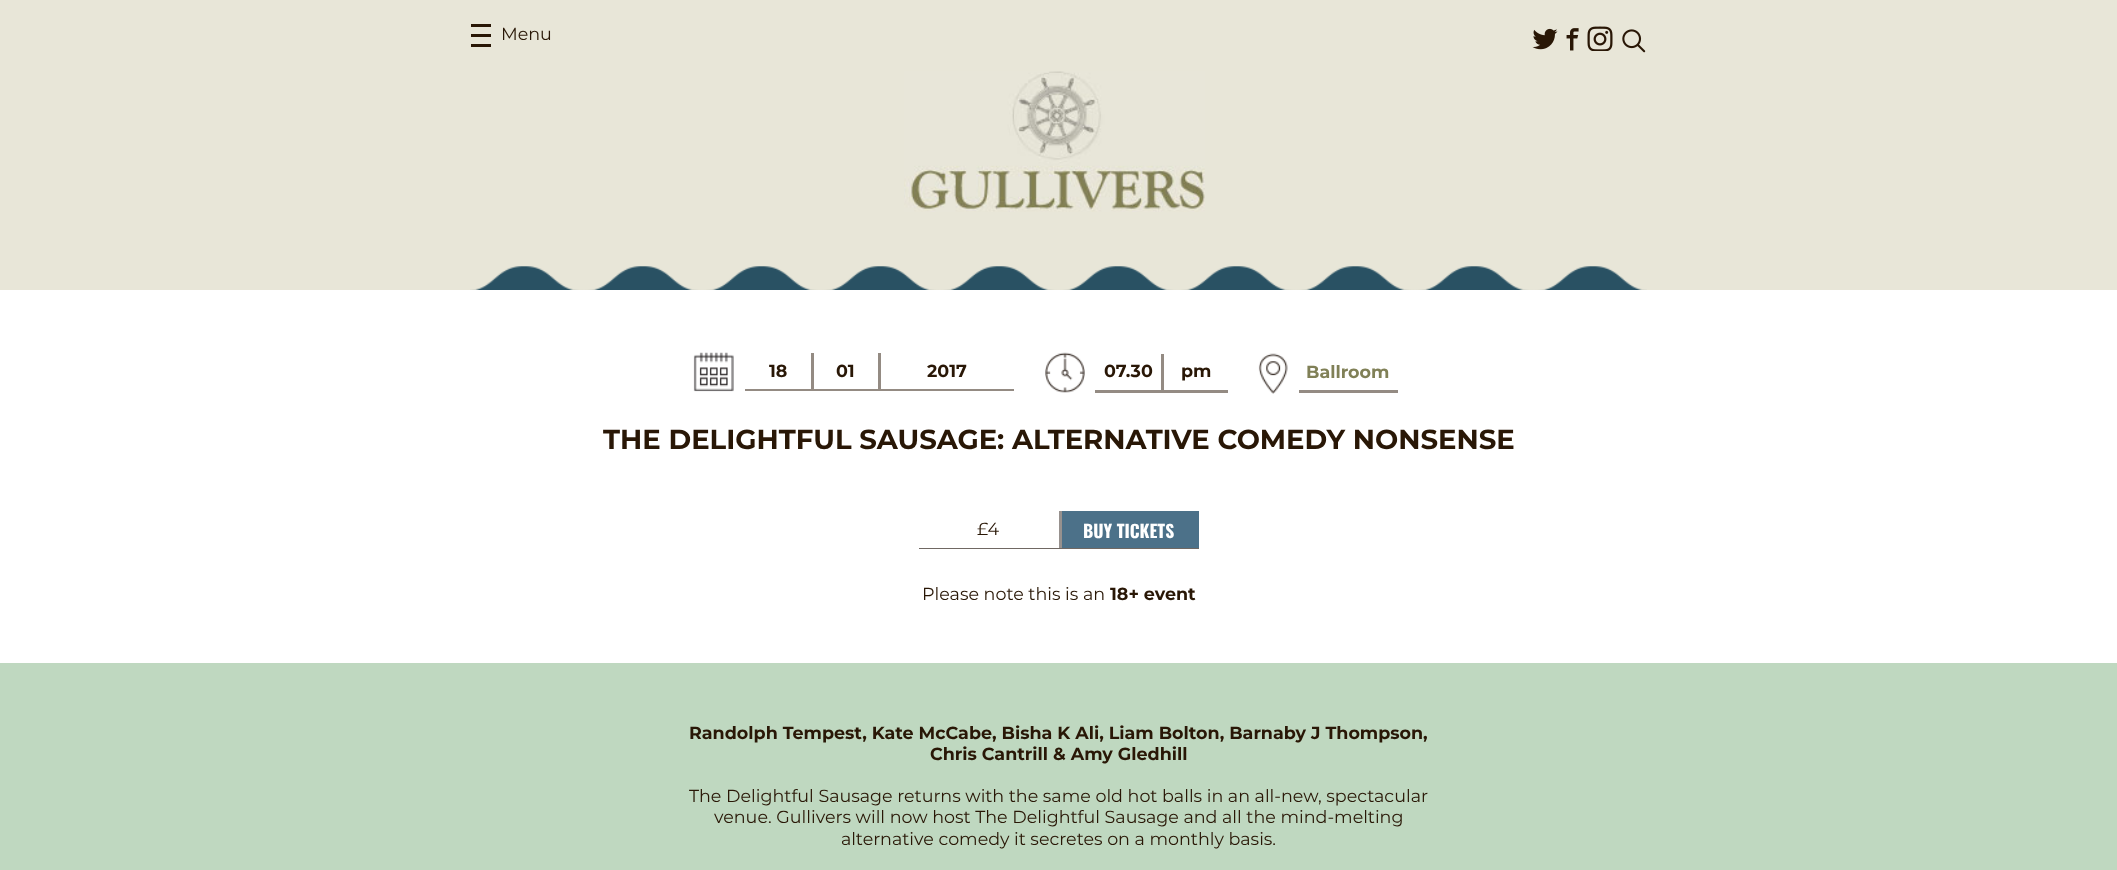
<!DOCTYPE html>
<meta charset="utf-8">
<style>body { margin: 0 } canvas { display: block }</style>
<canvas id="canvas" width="2117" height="870"></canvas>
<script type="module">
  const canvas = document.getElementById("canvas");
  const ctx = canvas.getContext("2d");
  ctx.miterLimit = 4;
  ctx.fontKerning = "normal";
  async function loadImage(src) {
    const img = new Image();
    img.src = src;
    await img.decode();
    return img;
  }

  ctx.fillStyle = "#bfd8c0";
  ctx.fillRect(0, 0, 2117, 870);
  ctx.fillStyle = "#e8e6d8";
  ctx.fillRect(0, 0, 2117, 290);
  ctx.fillStyle = "#291706";
  ctx.fillRect(471, 24, 20, 3);
  ctx.fillRect(471, 34, 20, 3);
  ctx.font = "17.5px Montserrat";
  ctx.fillText("Menu", 501, 40);
  ctx.fillRect(471, 44, 20, 3);
  ctx.drawImage(await loadImage("img1.png"), 1532, 28, 26, 22);
  ctx.drawImage(await loadImage("img2.png"), 1566, 28, 13, 23);
  ctx.drawImage(await loadImage("img3.png"), 1587, 26, 26, 25);
  ctx.drawImage(await loadImage("img4.png"), 1622, 29, 24, 24);
  ctx.drawImage(await loadImage("img5.png"), 904, 71, 301, 141);
  ctx.drawImage(await loadImage("img6.png"), 470, 266, 1177, 24);
  ctx.fillStyle = "#ffffff";
  ctx.fillRect(0, 290, 2117, 373);
  ctx.drawImage(await loadImage("img7.png"), 693, 352, 41, 40);
  ctx.fillStyle = "#948b83";
  ctx.fillRect(745, 389, 269, 2);
  ctx.font = "bold 17.5px Montserrat";
  ctx.fillStyle = "#291706";
  ctx.fillText("18", 769, 377);
  ctx.fillStyle = "#948b83";
  ctx.fillRect(811, 353, 3, 36);
  ctx.fillStyle = "#291706";
  ctx.fillText("01", 836, 377);
  ctx.fillStyle = "#948b83";
  ctx.fillRect(878, 353, 3, 36);
  ctx.fillStyle = "#291706";
  ctx.fillText("2017", 927, 377);
  ctx.drawImage(await loadImage("img8.png"), 1045, 352, 40, 41);
  ctx.fillStyle = "#948b83";
  ctx.fillRect(1095, 390, 133, 3);
  ctx.fillStyle = "#291706";
  ctx.fillText("07.30", 1104, 377);
  ctx.fillStyle = "#948b83";
  ctx.fillRect(1161, 354, 3, 36);
  ctx.fillStyle = "#291706";
  ctx.fillText("pm", 1181, 377);
  ctx.drawImage(await loadImage("img9.png"), 1258, 353, 30, 41);
  ctx.fillStyle = "#948b83";
  ctx.fillRect(1299, 390, 99, 3);
  ctx.fillStyle = "#808057";
  ctx.fillText("Ballroom", 1306, 378);
  ctx.font = "bold 27.5px Montserrat";
  ctx.fillStyle = "#291706";
  ctx.fillText("THE DELIGHTFUL SAUSAGE: ALTERNATIVE COMEDY NONSENSE", 603, 449);
  ctx.fillStyle = "#706863";
  ctx.fillRect(919, 548, 280, 1);
  ctx.font = "17.5px Montserrat";
  ctx.fillStyle = "#291706";
  ctx.fillText("£4", 977, 535);
  ctx.fillStyle = "#97918e";
  ctx.fillRect(1059, 511, 3, 37);
  ctx.fillStyle = "#4c7189";
  ctx.fillRect(1062, 511, 137, 37);
  ctx.font = "bold 17.5px Oswald";
  ctx.fillStyle = "#ffffff";
  ctx.fillText("BUY TICKETS", 1083, 538);
  ctx.font = "17.5px Montserrat";
  ctx.fillStyle = "#291706";
  ctx.fillText("Please note this is an", 922, 600);
  ctx.font = "bold 17.5px Montserrat";
  ctx.fillText("18+ event", 1110, 600);
  ctx.fillText("Randolph Tempest, Kate McCabe, Bisha K Ali, Liam Bolton, Barnaby J Thompson,", 689, 739);
  ctx.fillText("Chris Cantrill & Amy Gledhill", 930, 760);
  ctx.font = "17.5px Montserrat";
  ctx.fillText("The Delightful Sausage returns with the same old hot balls in an all-new, spectacular", 689, 802);
  ctx.fillText("venue. Gullivers will now host The Delightful Sausage and all the mind-melting", 714, 823);
  ctx.fillText("alternative comedy it secretes on a monthly basis.", 841, 845);
</script>
